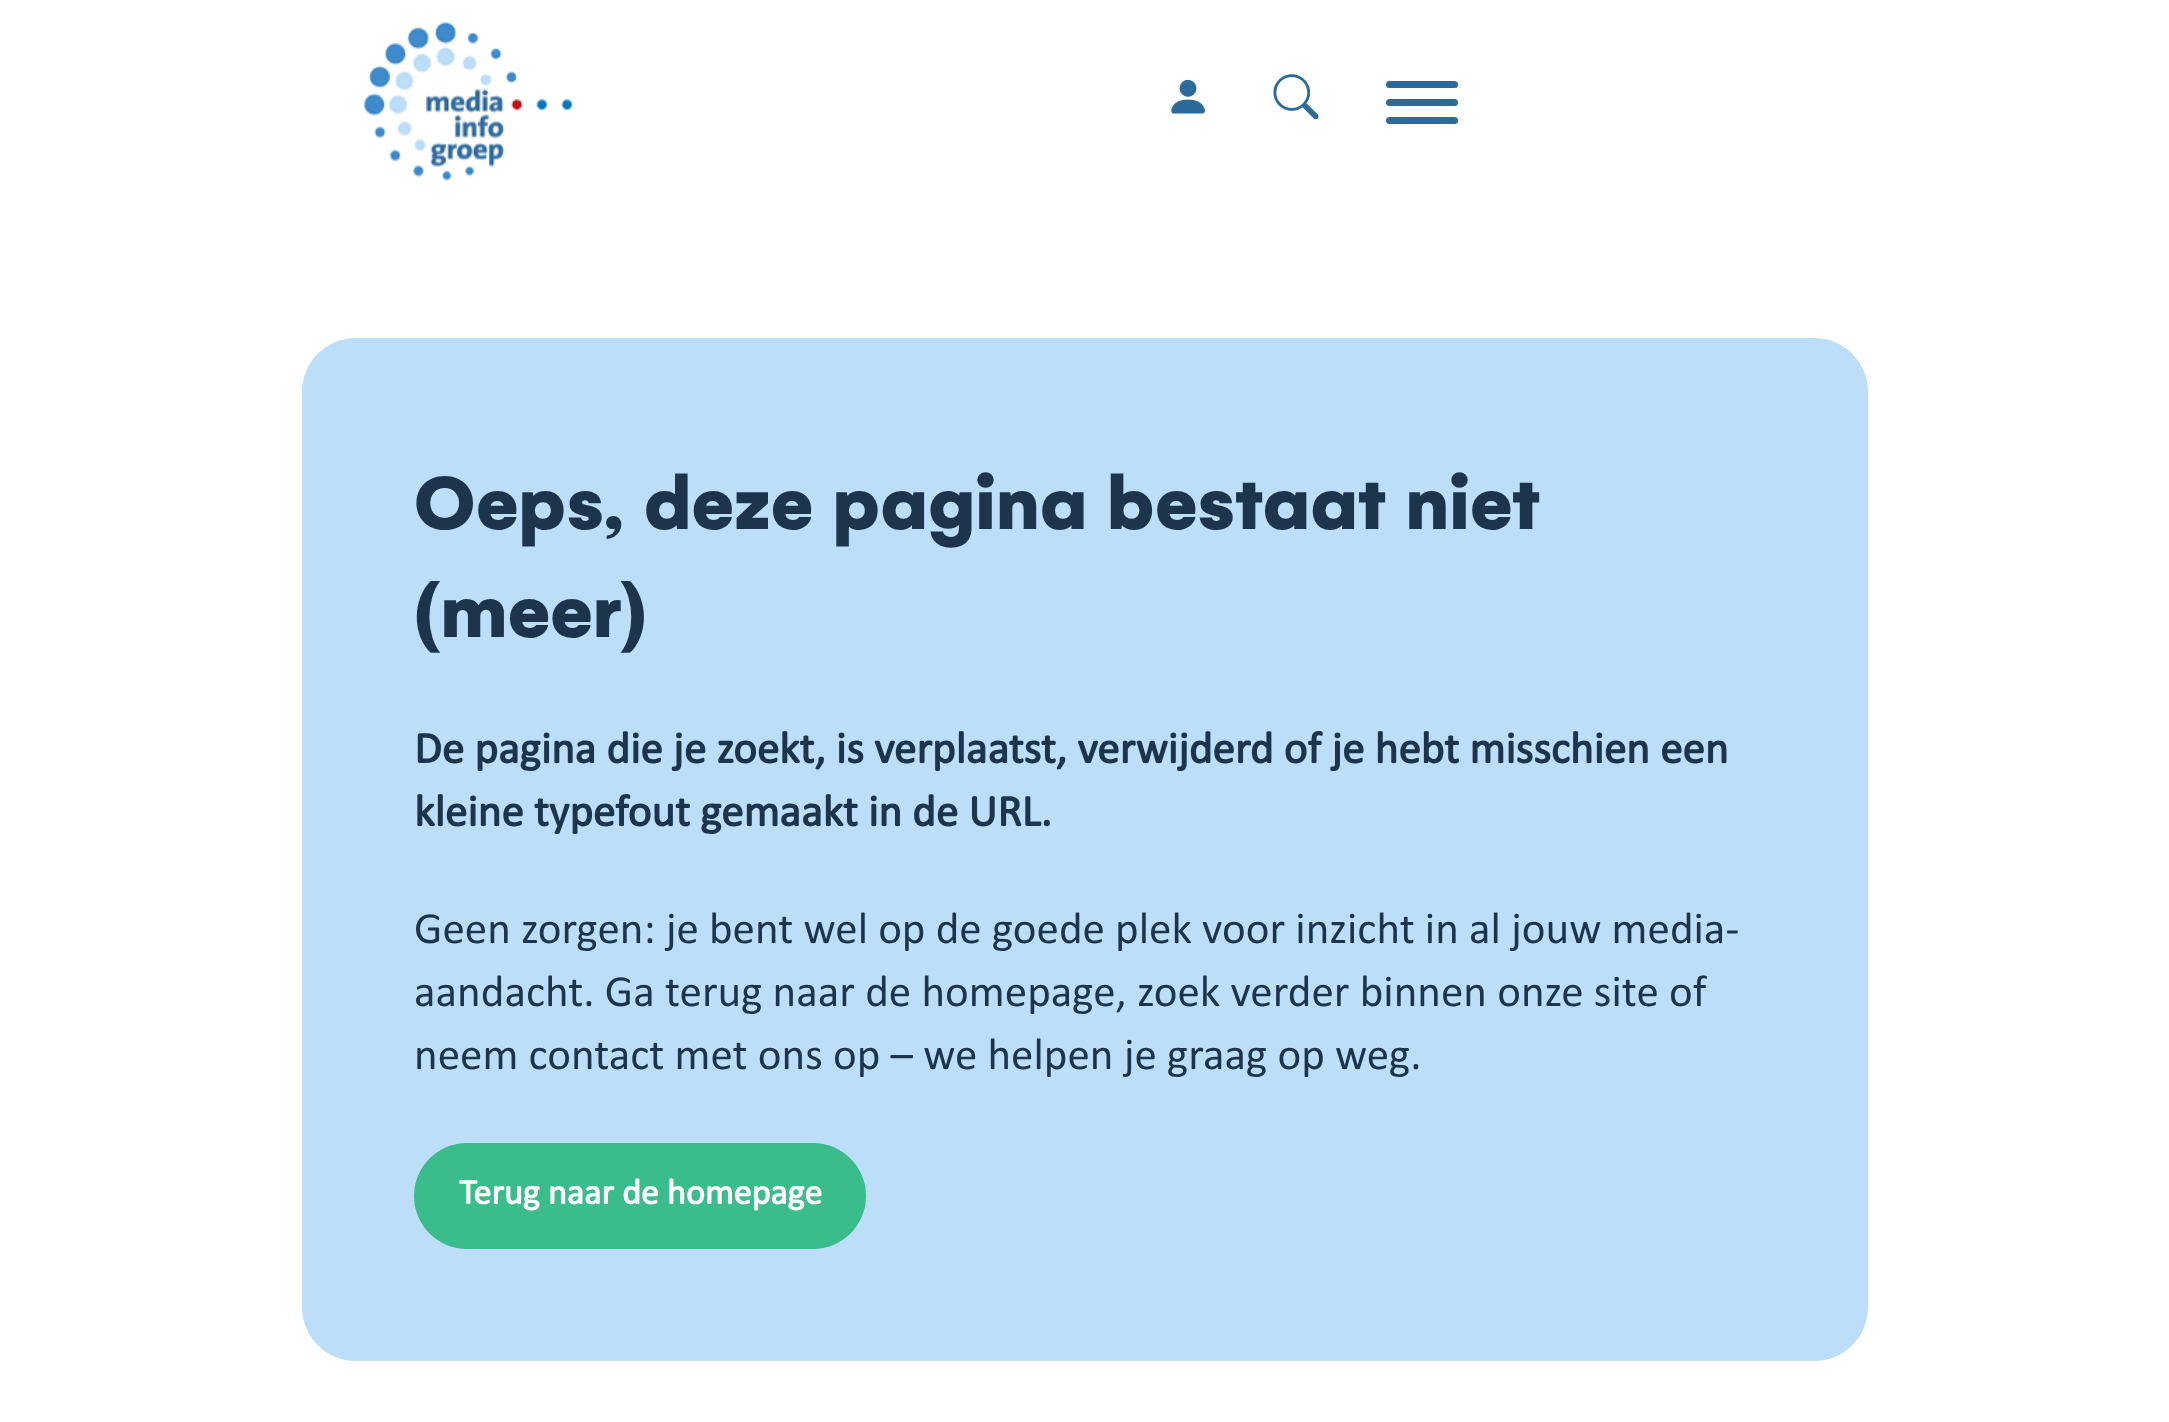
<!DOCTYPE html>
<meta charset="utf-8">
<style>body { margin: 0 } canvas { display: block }</style>
<canvas id="canvas" width="2169" height="1422"></canvas>
<script type="module">
  const canvas = document.getElementById("canvas");
  const ctx = canvas.getContext("2d");
  ctx.miterLimit = 4;
  ctx.fontKerning = "normal";
  async function loadImage(src) {
    const img = new Image();
    img.src = src;
    await img.decode();
    return img;
  }

  ctx.fillStyle = "#ffffff";
  ctx.fillRect(0, 0, 2169, 1422);
  ctx.drawImage(await loadImage("img1.png"), 363, 22, 209, 159);
  ctx.drawImage(await loadImage("img2.png"), 1171, 79, 34, 35);
  ctx.drawImage(await loadImage("img3.png"), 1273, 74, 46, 46);
  ctx.fillStyle = "#2d6a9c";
  ctx.beginPath();
  ctx.roundRect(1386, 81, 72, 7, 3.5);
  ctx.fill();
  ctx.beginPath();
  ctx.roundRect(1386, 99, 72, 7, 3.5);
  ctx.fill();
  ctx.beginPath();
  ctx.roundRect(1386, 117, 72, 7, 3.5);
  ctx.fill();
  ctx.fillStyle = "#bcdef8";
  ctx.beginPath();
  ctx.roundRect(302, 338, 1566, 1023, 54);
  ctx.fill();
  ctx.font = "900 81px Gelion";
  ctx.fillStyle = "#1c344c";
  ctx.fillText("Oeps, deze pagina bestaat niet", 414, 529);
  ctx.fillText("(meer)", 414, 637);
  ctx.font = "bold 45px Calibri";
  ctx.fillText("De pagina die je zoekt, is verplaatst, verwijderd of je hebt misschien een", 414, 763);
  ctx.fillText("kleine typefout gemaakt in de URL.", 414, 826);
  ctx.font = "45px Calibri";
  ctx.fillText("Geen zorgen: je bent wel op de goede plek voor inzicht in al jouw media-", 414, 943);
  ctx.fillText("aandacht. Ga terug naar de homepage, zoek verder binnen onze site of", 414, 1006);
  ctx.fillText("neem contact met ons op – we helpen je graag op weg.", 414, 1069);
  ctx.fillStyle = "#3bbd8b";
  ctx.beginPath();
  ctx.roundRect(414, 1143, 452, 106, 53);
  ctx.fill();
  ctx.font = "bold 36px Calibri";
  ctx.fillStyle = "#ffffff";
  ctx.fillText("Terug naar de homepage", 459, 1204);
</script>
